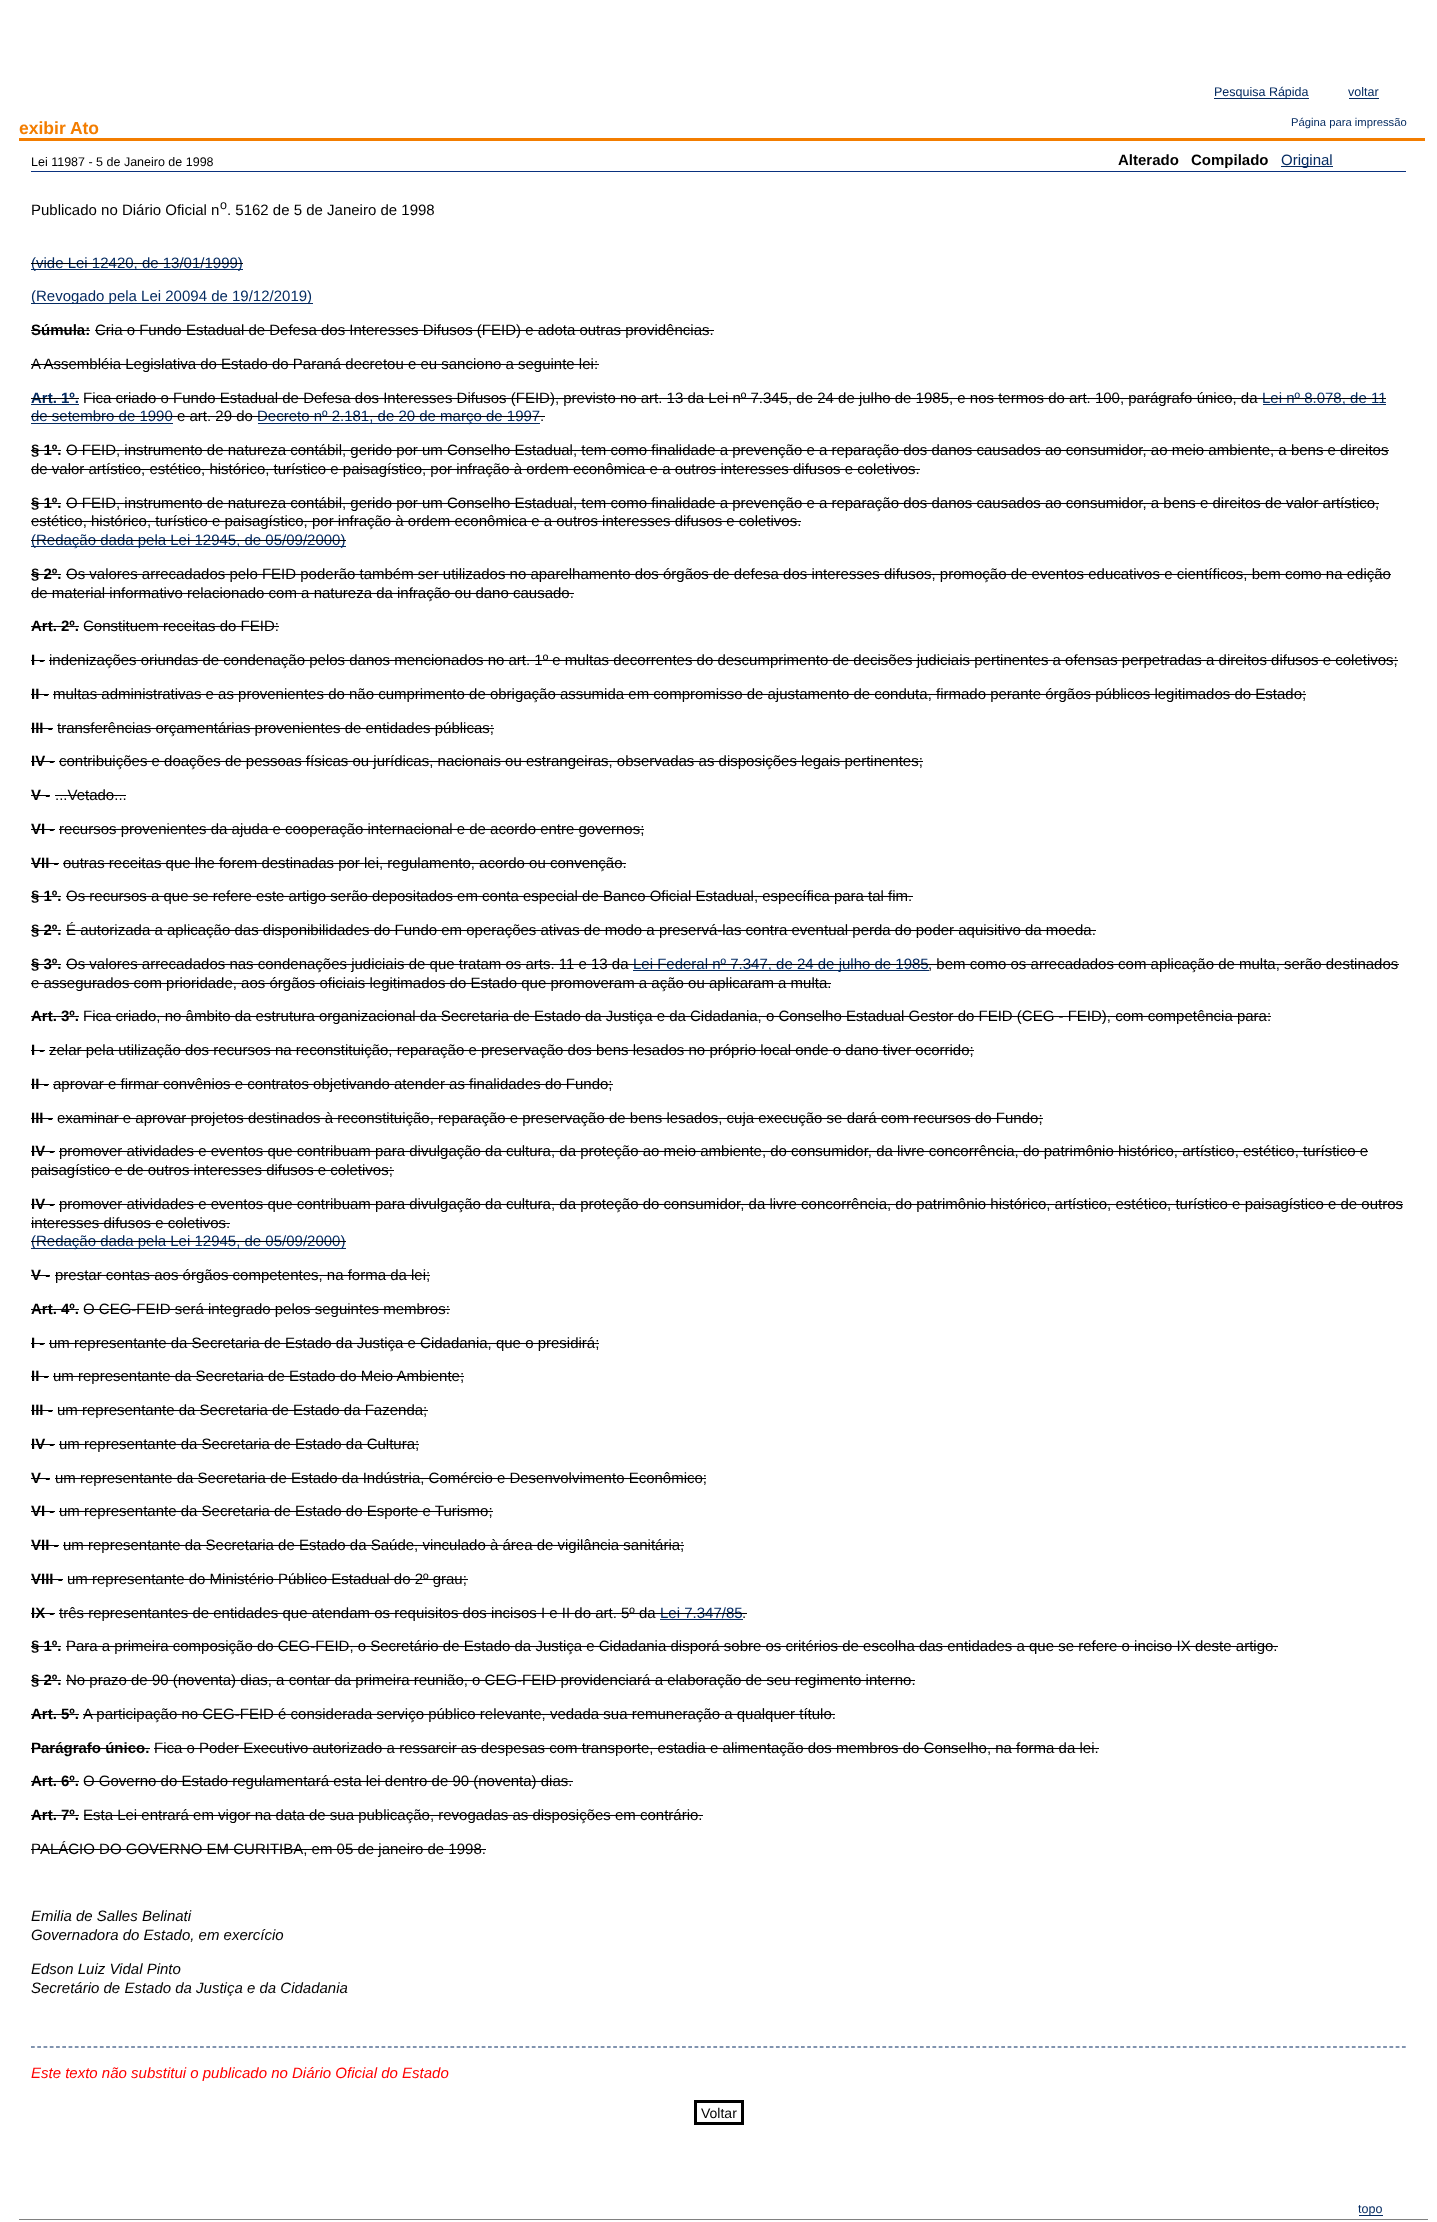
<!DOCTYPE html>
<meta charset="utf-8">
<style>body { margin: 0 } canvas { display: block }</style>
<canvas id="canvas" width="1437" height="2222"></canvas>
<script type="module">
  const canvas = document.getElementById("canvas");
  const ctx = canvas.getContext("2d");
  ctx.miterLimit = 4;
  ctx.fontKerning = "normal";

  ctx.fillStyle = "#ffffff";
  ctx.fillRect(0, 0, 1437, 2222);
  ctx.fillStyle = "#052b61";
  ctx.fillRect(1214, 98, 95, 1);
  ctx.font = "12.5px Liberation Sans";
  ctx.fillText("Pesquisa Rápida", 1214, 96);
  ctx.fillText("voltar", 1348, 96);
  ctx.fillRect(1349, 98, 30, 1);
  ctx.font = "11.25px Liberation Sans";
  ctx.fillText("Página para impressão", 1291, 126);
  ctx.font = "bold 15px Liberation Sans";
  ctx.fillStyle = "#000000";
  ctx.fillText("Alterado", 1118, 165);
  ctx.fillText("Compilado", 1191, 165);
  ctx.fillStyle = "#052b61";
  ctx.fillRect(1281, 166, 52, 1);
  ctx.font = "15px Liberation Sans";
  ctx.fillText("Original", 1281, 165);
  ctx.fillStyle = "#0a317f";
  ctx.fillRect(31, 171, 1375, 1);
  ctx.font = "12.5px Liberation Sans";
  ctx.fillStyle = "#000000";
  ctx.fillText("Lei 11987 - 5 de Janeiro de 1998", 31, 166);
  ctx.font = "15px Liberation Sans";
  ctx.fillText("Publicado no Diário Oficial n", 31, 215);
  ctx.font = "12.5px Liberation Sans";
  ctx.fillText("o", 220, 209);
  ctx.font = "15px Liberation Sans";
  ctx.fillText(". 5162 de 5 de Janeiro de 1998", 227, 215);
  ctx.fillStyle = "#052b61";
  ctx.fillRect(31, 269, 212, 1);
  ctx.fillText("(vide Lei 12420, de 13/01/1999)", 31, 268);
  ctx.fillStyle = "#000000";
  ctx.fillRect(31, 263, 212, 1);
  ctx.fillStyle = "#052b61";
  ctx.fillRect(31, 303, 282, 1);
  ctx.fillText("(Revogado pela Lei 20094 de 19/12/2019)", 31, 301);
  ctx.font = "bold 15px Liberation Sans";
  ctx.fillStyle = "#000000";
  ctx.fillText("Súmula:", 31, 335);
  ctx.fillRect(31, 330, 59, 1);
  ctx.font = "15px Liberation Sans";
  ctx.fillText("Cria o Fundo Estadual de Defesa dos Interesses Difusos (FEID) e adota outras providências.", 95, 335);
  ctx.fillRect(95, 330, 619, 1);
  ctx.fillText("A Assembléia Legislativa do Estado do Paraná decretou e eu sanciono a seguinte lei:", 31, 369);
  ctx.fillRect(31, 364, 568, 1);
  ctx.font = "bold 15px Liberation Sans";
  ctx.fillStyle = "#052b61";
  ctx.fillText("Art. 1º.", 31, 403);
  ctx.fillRect(31, 404, 48, 1);
  ctx.fillStyle = "#000000";
  ctx.fillRect(31, 398, 48, 1);
  ctx.font = "15px Liberation Sans";
  ctx.fillText("Fica criado o Fundo Estadual de Defesa dos Interesses Difusos (FEID), previsto no art. 13 da Lei nº 7.345, de 24 de julho de 1985, e nos termos do art. 100, parágrafo único, da", 83, 403);
  ctx.fillStyle = "#052b61";
  ctx.fillRect(1263, 404, 123, 1);
  ctx.fillText("Lei nº 8.078, de 11", 1262, 403);
  ctx.fillStyle = "#000000";
  ctx.fillRect(84, 398, 1179, 1);
  ctx.fillRect(1263, 398, 123, 1);
  ctx.fillStyle = "#052b61";
  ctx.fillText("de setembro de 1990", 31, 421);
  ctx.fillRect(31, 423, 142, 1);
  ctx.fillStyle = "#000000";
  ctx.fillRect(31, 416, 142, 1);
  ctx.fillRect(173, 416, 85, 1);
  ctx.fillText("e art. 29 do", 177, 421);
  ctx.fillStyle = "#052b61";
  ctx.fillRect(258, 423, 282, 1);
  ctx.fillText("Decreto nº 2.181, de 20 de março de 1997", 257, 421);
  ctx.fillStyle = "#000000";
  ctx.fillRect(258, 416, 287, 1);
  ctx.fillText(".", 540, 421);
  ctx.font = "bold 15px Liberation Sans";
  ctx.fillText("§ 1º.", 31, 455);
  ctx.fillRect(31, 450, 30, 1);
  ctx.font = "15px Liberation Sans";
  ctx.fillText("O FEID, instrumento de natureza contábil, gerido por um Conselho Estadual, tem como finalidade a prevenção e a reparação dos danos causados ao consumidor, ao meio ambiente, a bens e direitos", 66, 455);
  ctx.fillRect(66, 450, 1323, 1);
  ctx.fillText("de valor artístico, estético, histórico, turístico e paisagístico, por infração à ordem econômica e a outros interesses difusos e coletivos.", 31, 474);
  ctx.fillRect(31, 469, 889, 1);
  ctx.font = "bold 15px Liberation Sans";
  ctx.fillText("§ 1º.", 31, 508);
  ctx.fillRect(31, 503, 30, 1);
  ctx.font = "15px Liberation Sans";
  ctx.fillText("O FEID, instrumento de natureza contábil, gerido por um Conselho Estadual, tem como finalidade a prevenção e a reparação dos danos causados ao consumidor, a bens e direitos de valor artístico,", 66, 508);
  ctx.fillRect(66, 503, 1313, 1);
  ctx.fillText("estético, histórico, turístico e paisagístico, por infração à ordem econômica e a outros interesses difusos e coletivos.", 31, 526);
  ctx.fillRect(31, 521, 770, 1);
  ctx.fillStyle = "#052b61";
  ctx.fillRect(31, 546, 315, 1);
  ctx.fillText("(Redação dada pela Lei 12945, de 05/09/2000)", 31, 545);
  ctx.fillStyle = "#000000";
  ctx.fillRect(31, 540, 315, 1);
  ctx.font = "bold 15px Liberation Sans";
  ctx.fillText("§ 2º.", 31, 579);
  ctx.fillRect(31, 574, 30, 1);
  ctx.font = "15px Liberation Sans";
  ctx.fillText("Os valores arrecadados pelo FEID poderão também ser utilizados no aparelhamento dos órgãos de defesa dos interesses difusos, promoção de eventos educativos e científicos, bem como na edição", 66, 579);
  ctx.fillRect(66, 574, 1325, 1);
  ctx.fillText("de material informativo relacionado com a natureza da infração ou dano causado.", 31, 598);
  ctx.fillRect(31, 593, 543, 1);
  ctx.font = "bold 15px Liberation Sans";
  ctx.fillText("Art. 2º.", 31, 631);
  ctx.fillRect(31, 626, 48, 1);
  ctx.font = "15px Liberation Sans";
  ctx.fillText("Constituem receitas do FEID:", 83, 631);
  ctx.fillRect(84, 626, 195, 1);
  ctx.font = "bold 15px Liberation Sans";
  ctx.fillText("I -", 31, 665);
  ctx.fillRect(31, 660, 14, 1);
  ctx.font = "15px Liberation Sans";
  ctx.fillText("indenizações oriundas de condenação pelos danos mencionados no art. 1º e multas decorrentes do descumprimento de decisões judiciais pertinentes a ofensas perpetradas a direitos difusos e coletivos;", 49, 665);
  ctx.fillRect(49, 660, 1349, 1);
  ctx.font = "bold 15px Liberation Sans";
  ctx.fillText("II -", 31, 699);
  ctx.fillRect(31, 694, 18, 1);
  ctx.font = "15px Liberation Sans";
  ctx.fillText("multas administrativas e as provenientes do não cumprimento de obrigação assumida em compromisso de ajustamento de conduta, firmado perante órgãos públicos legitimados do Estado;", 53, 699);
  ctx.fillRect(53, 694, 1253, 1);
  ctx.font = "bold 15px Liberation Sans";
  ctx.fillText("III -", 31, 733);
  ctx.fillRect(31, 728, 22, 1);
  ctx.font = "15px Liberation Sans";
  ctx.fillText("transferências orçamentárias provenientes de entidades públicas;", 57, 733);
  ctx.fillRect(58, 728, 436, 1);
  ctx.font = "bold 15px Liberation Sans";
  ctx.fillText("IV -", 31, 766);
  ctx.fillRect(31, 761, 24, 1);
  ctx.font = "15px Liberation Sans";
  ctx.fillText("contribuições e doações de pessoas físicas ou jurídicas, nacionais ou estrangeiras, observadas as disposições legais pertinentes;", 59, 766);
  ctx.fillRect(59, 761, 864, 1);
  ctx.font = "bold 15px Liberation Sans";
  ctx.fillText("V -", 31, 800);
  ctx.fillRect(31, 795, 19, 1);
  ctx.font = "15px Liberation Sans";
  ctx.fillText("...Vetado...", 55, 800);
  ctx.fillRect(55, 795, 71, 1);
  ctx.font = "bold 15px Liberation Sans";
  ctx.fillText("VI -", 31, 834);
  ctx.fillRect(31, 829, 24, 1);
  ctx.font = "15px Liberation Sans";
  ctx.fillText("recursos provenientes da ajuda e cooperação internacional e de acordo entre governos;", 59, 834);
  ctx.fillRect(59, 829, 585, 1);
  ctx.font = "bold 15px Liberation Sans";
  ctx.fillText("VII -", 31, 868);
  ctx.fillRect(31, 863, 28, 1);
  ctx.font = "15px Liberation Sans";
  ctx.fillText("outras receitas que lhe forem destinadas por lei, regulamento, acordo ou convenção.", 63, 868);
  ctx.fillRect(63, 863, 563, 1);
  ctx.font = "bold 15px Liberation Sans";
  ctx.fillText("§ 1º.", 31, 901);
  ctx.fillRect(31, 896, 30, 1);
  ctx.font = "15px Liberation Sans";
  ctx.fillText("Os recursos a que se refere este artigo serão depositados em conta especial de Banco Oficial Estadual, específica para tal fim.", 66, 901);
  ctx.fillRect(66, 896, 847, 1);
  ctx.font = "bold 15px Liberation Sans";
  ctx.fillText("§ 2º.", 31, 935);
  ctx.fillRect(31, 930, 30, 1);
  ctx.font = "15px Liberation Sans";
  ctx.fillText("É autorizada a aplicação das disponibilidades do Fundo em operações ativas de modo a preservá-las contra eventual perda do poder aquisitivo da moeda.", 66, 935);
  ctx.fillRect(66, 930, 1030, 1);
  ctx.font = "bold 15px Liberation Sans";
  ctx.fillText("§ 3º.", 31, 969);
  ctx.fillRect(31, 964, 30, 1);
  ctx.font = "15px Liberation Sans";
  ctx.fillText("Os valores arrecadados nas condenações judiciais de que tratam os arts. 11 e 13 da", 66, 969);
  ctx.fillRect(66, 964, 567, 1);
  ctx.fillStyle = "#052b61";
  ctx.fillRect(633, 970, 296, 1);
  ctx.fillText("Lei Federal nº 7.347, de 24 de julho de 1985", 633, 969);
  ctx.fillStyle = "#000000";
  ctx.fillRect(633, 964, 296, 1);
  ctx.fillText(", bem como os arrecadados com aplicação de multa, serão destinados", 928, 969);
  ctx.fillRect(929, 964, 470, 1);
  ctx.fillText("e assegurados com prioridade, aos órgãos oficiais legitimados do Estado que promoveram a ação ou aplicaram a multa.", 31, 988);
  ctx.fillRect(31, 983, 800, 1);
  ctx.font = "bold 15px Liberation Sans";
  ctx.fillText("Art. 3º.", 31, 1021);
  ctx.fillRect(31, 1016, 48, 1);
  ctx.font = "15px Liberation Sans";
  ctx.fillText("Fica criado, no âmbito da estrutura organizacional da Secretaria de Estado da Justiça e da Cidadania, o Conselho Estadual Gestor do FEID (CEG - FEID), com competência para:", 83, 1021);
  ctx.fillRect(84, 1016, 1187, 1);
  ctx.font = "bold 15px Liberation Sans";
  ctx.fillText("I -", 31, 1055);
  ctx.fillRect(31, 1050, 14, 1);
  ctx.font = "15px Liberation Sans";
  ctx.fillText("zelar pela utilização dos recursos na reconstituição, reparação e preservação dos bens lesados no próprio local onde o dano tiver ocorrido;", 49, 1055);
  ctx.fillRect(49, 1050, 925, 1);
  ctx.font = "bold 15px Liberation Sans";
  ctx.fillText("II -", 31, 1089);
  ctx.fillRect(31, 1084, 18, 1);
  ctx.font = "15px Liberation Sans";
  ctx.fillText("aprovar e firmar convênios e contratos objetivando atender as finalidades do Fundo;", 53, 1089);
  ctx.fillRect(53, 1084, 560, 1);
  ctx.font = "bold 15px Liberation Sans";
  ctx.fillText("III -", 31, 1123);
  ctx.fillRect(31, 1118, 22, 1);
  ctx.font = "15px Liberation Sans";
  ctx.fillText("examinar e aprovar projetos destinados à reconstituição, reparação e preservação de bens lesados, cuja execução se dará com recursos do Fundo;", 57, 1123);
  ctx.fillRect(58, 1118, 985, 1);
  ctx.font = "bold 15px Liberation Sans";
  ctx.fillText("IV -", 31, 1156);
  ctx.fillRect(31, 1151, 24, 1);
  ctx.font = "15px Liberation Sans";
  ctx.fillText("promover atividades e eventos que contribuam para divulgação da cultura, da proteção ao meio ambiente, do consumidor, da livre concorrência, do patrimônio histórico, artístico, estético, turístico e", 59, 1156);
  ctx.fillRect(59, 1151, 1309, 1);
  ctx.fillText("paisagístico e de outros interesses difusos e coletivos;", 31, 1175);
  ctx.fillRect(31, 1170, 363, 1);
  ctx.font = "bold 15px Liberation Sans";
  ctx.fillText("IV -", 31, 1209);
  ctx.fillRect(31, 1204, 24, 1);
  ctx.font = "15px Liberation Sans";
  ctx.fillText("promover atividades e eventos que contribuam para divulgação da cultura, da proteção do consumidor, da livre concorrência, do patrimônio histórico, artístico, estético, turístico e paisagístico e de outros", 59, 1209);
  ctx.fillRect(59, 1204, 1344, 1);
  ctx.fillText("interesses difusos e coletivos.", 31, 1228);
  ctx.fillRect(31, 1223, 199, 1);
  ctx.fillStyle = "#052b61";
  ctx.fillRect(31, 1248, 315, 1);
  ctx.fillText("(Redação dada pela Lei 12945, de 05/09/2000)", 31, 1246);
  ctx.fillStyle = "#000000";
  ctx.fillRect(31, 1241, 315, 1);
  ctx.font = "bold 15px Liberation Sans";
  ctx.fillText("V -", 31, 1280);
  ctx.fillRect(31, 1275, 19, 1);
  ctx.font = "15px Liberation Sans";
  ctx.fillText("prestar contas aos órgãos competentes, na forma da lei;", 55, 1280);
  ctx.fillRect(55, 1275, 375, 1);
  ctx.font = "bold 15px Liberation Sans";
  ctx.fillText("Art. 4º.", 31, 1314);
  ctx.fillRect(31, 1309, 48, 1);
  ctx.font = "15px Liberation Sans";
  ctx.fillText("O CEG-FEID será integrado pelos seguintes membros:", 83, 1314);
  ctx.fillRect(84, 1309, 366, 1);
  ctx.font = "bold 15px Liberation Sans";
  ctx.fillText("I -", 31, 1348);
  ctx.fillRect(31, 1343, 14, 1);
  ctx.font = "15px Liberation Sans";
  ctx.fillText("um representante da Secretaria de Estado da Justiça e Cidadania, que o presidirá;", 49, 1348);
  ctx.fillRect(49, 1343, 550, 1);
  ctx.font = "bold 15px Liberation Sans";
  ctx.fillText("II -", 31, 1381);
  ctx.fillRect(31, 1376, 18, 1);
  ctx.font = "15px Liberation Sans";
  ctx.fillText("um representante da Secretaria de Estado do Meio Ambiente;", 53, 1381);
  ctx.fillRect(53, 1376, 411, 1);
  ctx.font = "bold 15px Liberation Sans";
  ctx.fillText("III -", 31, 1415);
  ctx.fillRect(31, 1410, 22, 1);
  ctx.font = "15px Liberation Sans";
  ctx.fillText("um representante da Secretaria de Estado da Fazenda;", 57, 1415);
  ctx.fillRect(58, 1410, 370, 1);
  ctx.font = "bold 15px Liberation Sans";
  ctx.fillText("IV -", 31, 1449);
  ctx.fillRect(31, 1444, 24, 1);
  ctx.font = "15px Liberation Sans";
  ctx.fillText("um representante da Secretaria de Estado da Cultura;", 59, 1449);
  ctx.fillRect(59, 1444, 360, 1);
  ctx.font = "bold 15px Liberation Sans";
  ctx.fillText("V -", 31, 1483);
  ctx.fillRect(31, 1478, 19, 1);
  ctx.font = "15px Liberation Sans";
  ctx.fillText("um representante da Secretaria de Estado da Indústria, Comércio e Desenvolvimento Econômico;", 55, 1483);
  ctx.fillRect(55, 1478, 651, 1);
  ctx.font = "bold 15px Liberation Sans";
  ctx.fillText("VI -", 31, 1516);
  ctx.fillRect(31, 1511, 24, 1);
  ctx.font = "15px Liberation Sans";
  ctx.fillText("um representante da Secretaria de Estado do Esporte e Turismo;", 59, 1516);
  ctx.fillRect(59, 1511, 434, 1);
  ctx.font = "bold 15px Liberation Sans";
  ctx.fillText("VII -", 31, 1550);
  ctx.fillRect(31, 1545, 28, 1);
  ctx.font = "15px Liberation Sans";
  ctx.fillText("um representante da Secretaria de Estado da Saúde, vinculado à área de vigilância sanitária;", 63, 1550);
  ctx.fillRect(63, 1545, 621, 1);
  ctx.font = "bold 15px Liberation Sans";
  ctx.fillText("VIII -", 31, 1584);
  ctx.fillRect(31, 1579, 32, 1);
  ctx.font = "15px Liberation Sans";
  ctx.fillText("um representante do Ministério Público Estadual do 2º grau;", 67, 1584);
  ctx.fillRect(68, 1579, 400, 1);
  ctx.font = "bold 15px Liberation Sans";
  ctx.fillText("IX -", 31, 1618);
  ctx.fillRect(31, 1613, 24, 1);
  ctx.font = "15px Liberation Sans";
  ctx.fillText("três representantes de entidades que atendam os requisitos dos incisos I e II do art. 5º da", 59, 1618);
  ctx.fillStyle = "#052b61";
  ctx.fillText("Lei 7.347/85", 660, 1618);
  ctx.fillStyle = "#000000";
  ctx.fillRect(59, 1613, 601, 1);
  ctx.fillRect(660, 1613, 87, 1);
  ctx.fillText(".", 742, 1618);
  ctx.fillStyle = "#052b61";
  ctx.fillRect(660, 1619, 83, 1);
  ctx.font = "bold 15px Liberation Sans";
  ctx.fillStyle = "#000000";
  ctx.fillText("§ 1º.", 31, 1651);
  ctx.fillRect(31, 1646, 30, 1);
  ctx.font = "15px Liberation Sans";
  ctx.fillText("Para a primeira composição do CEG-FEID, o Secretário de Estado da Justiça e Cidadania disporá sobre os critérios de escolha das entidades a que se refere o inciso IX deste artigo.", 66, 1651);
  ctx.fillRect(66, 1646, 1212, 1);
  ctx.font = "bold 15px Liberation Sans";
  ctx.fillText("§ 2º.", 31, 1685);
  ctx.fillRect(31, 1680, 30, 1);
  ctx.font = "15px Liberation Sans";
  ctx.fillText("No prazo de 90 (noventa) dias, a contar da primeira reunião, o CEG-FEID providenciará a elaboração de seu regimento interno.", 66, 1685);
  ctx.fillRect(66, 1680, 849, 1);
  ctx.font = "bold 15px Liberation Sans";
  ctx.fillText("Art. 5º.", 31, 1719);
  ctx.fillRect(31, 1714, 48, 1);
  ctx.font = "15px Liberation Sans";
  ctx.fillText("A participação no CEG-FEID é considerada serviço público relevante, vedada sua remuneração a qualquer título.", 83, 1719);
  ctx.fillRect(83, 1714, 752, 1);
  ctx.font = "bold 15px Liberation Sans";
  ctx.fillText("Parágrafo único.", 31, 1753);
  ctx.fillRect(31, 1748, 119, 1);
  ctx.font = "15px Liberation Sans";
  ctx.fillText("Fica o Poder Executivo autorizado a ressarcir as despesas com transporte, estadia e alimentação dos membros do Conselho, na forma da lei.", 154, 1753);
  ctx.fillRect(154, 1748, 945, 1);
  ctx.font = "bold 15px Liberation Sans";
  ctx.fillText("Art. 6º.", 31, 1786);
  ctx.fillRect(31, 1781, 48, 1);
  ctx.font = "15px Liberation Sans";
  ctx.fillText("O Governo do Estado regulamentará esta lei dentro de 90 (noventa) dias.", 83, 1786);
  ctx.fillRect(84, 1781, 489, 1);
  ctx.font = "bold 15px Liberation Sans";
  ctx.fillText("Art. 7º.", 31, 1820);
  ctx.fillRect(31, 1815, 48, 1);
  ctx.font = "15px Liberation Sans";
  ctx.fillText("Esta Lei entrará em vigor na data de sua publicação, revogadas as disposições em contrário.", 83, 1820);
  ctx.fillRect(84, 1815, 619, 1);
  ctx.fillText("PALÁCIO DO GOVERNO EM CURITIBA, em 05 de janeiro de 1998.", 31, 1854);
  ctx.fillRect(31, 1849, 455, 1);
  ctx.font = "italic 15px Liberation Sans";
  ctx.fillText("Emilia de Salles Belinati", 31, 1921);
  ctx.fillText("Governadora do Estado, em exercício", 31, 1940);
  ctx.fillText("Edson Luiz Vidal Pinto", 31, 1974);
  ctx.fillText("Secretário de Estado da Justiça e da Cidadania", 31, 1993);
  ctx.beginPath();
  ctx.moveTo(31, 2047);
  ctx.lineTo(1406, 2047);
  ctx.strokeStyle = "#052b61";
  ctx.lineWidth = 1.2;
  ctx.setLineDash([3.75, 2.51]);
  ctx.stroke();
  ctx.fillStyle = "#ff0000";
  ctx.fillText("Este texto não substitui o publicado no Diário Oficial do Estado", 31, 2078);
  ctx.strokeStyle = "#000000";
  ctx.lineWidth = 3;
  ctx.setLineDash([]);
  ctx.strokeRect(695.5, 2101.5, 47, 22);
  ctx.font = "14px Liberation Sans";
  ctx.fillStyle = "#000000";
  ctx.fillText("Voltar", 701, 2118);
  ctx.fillStyle = "#f37d00";
  ctx.fillRect(19, 138, 1406, 3);
  ctx.font = "bold 17.5px Liberation Sans";
  ctx.fillText("exibir Ato", 19, 134);
  ctx.fillStyle = "#052b61";
  ctx.fillRect(1359, 2215, 24, 1);
  ctx.font = "12.5px Liberation Sans";
  ctx.fillText("topo", 1358, 2213);
  ctx.fillStyle = "#808080";
  ctx.fillRect(19, 2219, 1409, 1);
</script>
